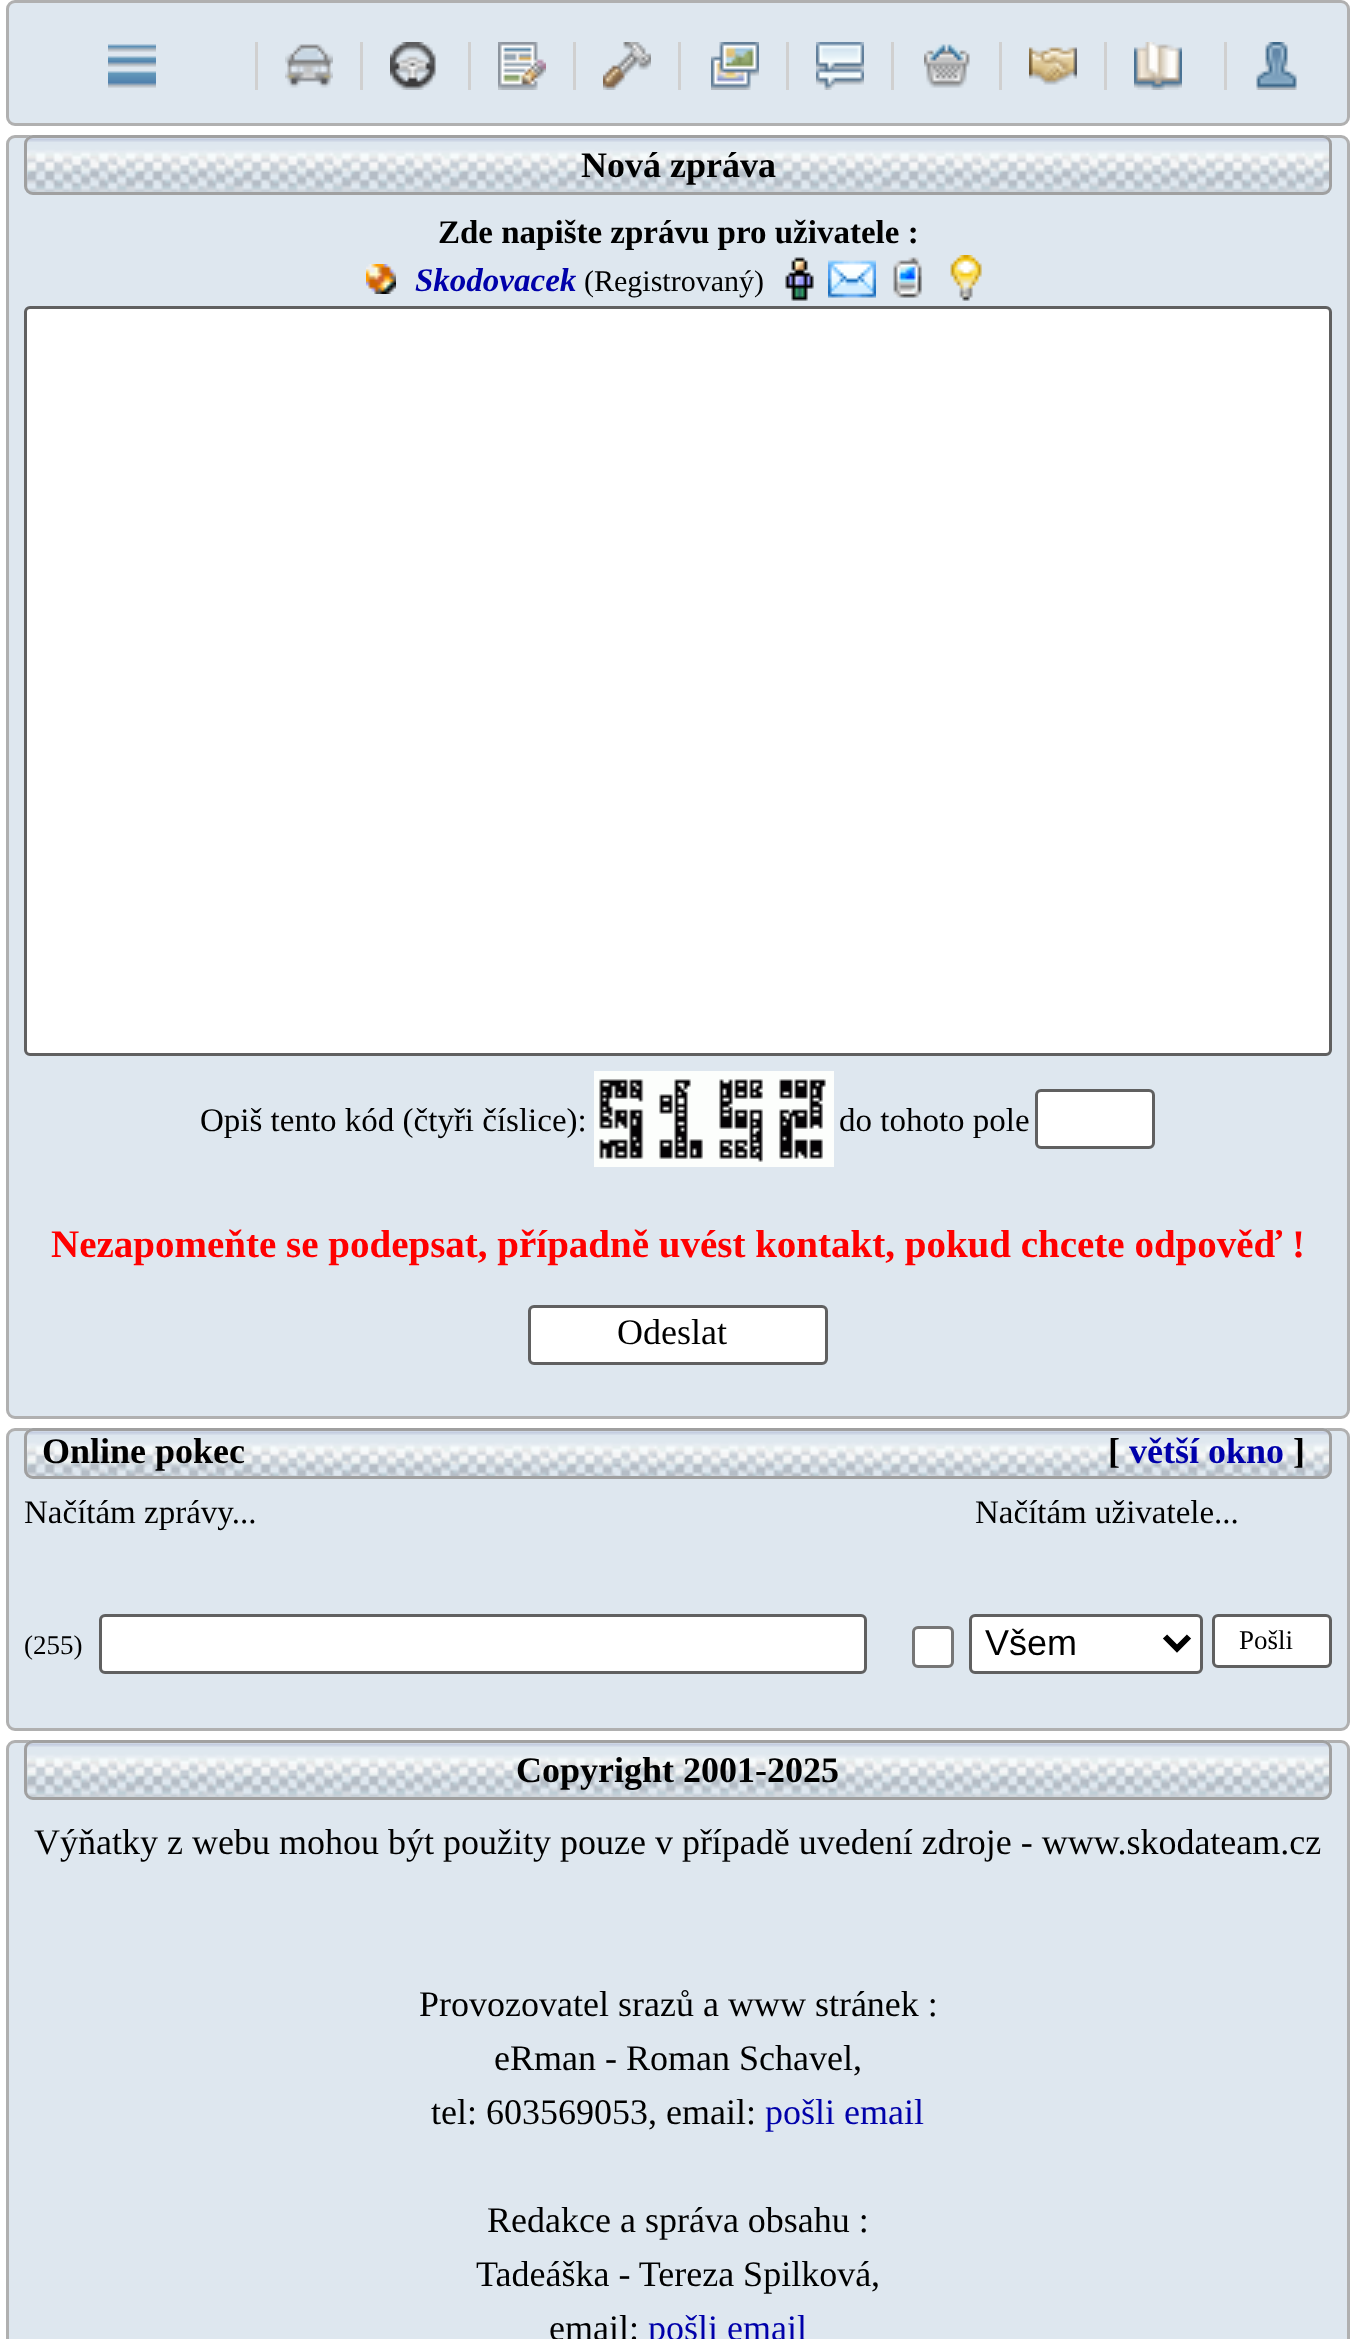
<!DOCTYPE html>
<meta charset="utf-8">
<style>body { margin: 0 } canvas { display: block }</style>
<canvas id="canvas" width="1354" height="2339"></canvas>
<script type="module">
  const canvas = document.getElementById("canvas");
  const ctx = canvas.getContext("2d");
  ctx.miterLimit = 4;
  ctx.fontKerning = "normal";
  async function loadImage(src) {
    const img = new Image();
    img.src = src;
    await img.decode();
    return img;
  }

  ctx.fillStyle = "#ffffff";
  ctx.fillRect(0, 0, 1354, 2339);
  ctx.fillStyle = "#dee7ef";
  ctx.beginPath();
  ctx.roundRect(7.5, 1.5, 1341, 123, 7.5);
  ctx.fill();
  ctx.strokeStyle = "#b0b0b0";
  ctx.lineWidth = 3;
  ctx.stroke();
  ctx.drawImage(await loadImage("img1.png"), 108, 44, 48, 44);
  ctx.fillStyle = "#d0d0d0";
  ctx.fillRect(255, 42, 3, 48);
  ctx.drawImage(await loadImage("img2.png"), 285, 44, 48, 44);
  ctx.fillRect(360, 42, 3, 48);
  ctx.drawImage(await loadImage("img3.png"), 390, 42, 46, 48);
  ctx.fillRect(468, 42, 3, 48);
  ctx.drawImage(await loadImage("img4.png"), 498, 42, 48, 48);
  ctx.fillRect(573, 42, 3, 48);
  ctx.drawImage(await loadImage("img5.png"), 603, 42, 48, 48);
  ctx.fillRect(678, 42, 3, 48);
  ctx.drawImage(await loadImage("img6.png"), 711, 42, 48, 48);
  ctx.fillRect(786, 42, 3, 48);
  ctx.drawImage(await loadImage("img7.png"), 816, 42, 48, 48);
  ctx.fillRect(891, 42, 3, 48);
  ctx.drawImage(await loadImage("img8.png"), 924, 44, 46, 44);
  ctx.fillRect(999, 42, 3, 48);
  ctx.drawImage(await loadImage("img9.png"), 1029, 47, 48, 38);
  ctx.fillRect(1104, 42, 3, 48);
  ctx.drawImage(await loadImage("img10.png"), 1134, 42, 48, 48);
  ctx.fillRect(1224, 42, 3, 48);
  ctx.drawImage(await loadImage("img11.png"), 1256, 42, 41, 48);
  ctx.fillStyle = "#dee7ef";
  ctx.beginPath();
  ctx.roundRect(7.5, 136.5, 1341, 1281, 7.5);
  ctx.fill();
  ctx.stroke();
  ctx.drawImage(await loadImage("img12.png"), 24, 135, 1308, 60);
  ctx.beginPath();
  ctx.roundRect(25.5, 136.5, 1305, 57, 7.5);
  ctx.strokeStyle = "#a0a0a0";
  ctx.stroke();
  ctx.font = "bold 36px Liberation Serif";
  ctx.fillStyle = "#000000";
  ctx.fillText("Nová zpráva", 581, 177);
  ctx.font = "bold 33px Liberation Serif";
  ctx.fillText("Zde napište zprávu pro uživatele :", 438, 243);
  ctx.drawImage(await loadImage("img13.png"), 366, 264, 30, 30);
  ctx.font = "italic bold 33px Liberation Serif";
  ctx.fillStyle = "#0000aa";
  ctx.fillText("Skodovacek", 415, 291);
  ctx.font = "30px Liberation Serif";
  ctx.fillStyle = "#000000";
  ctx.fillText("(Registrovaný)", 584, 291);
  ctx.drawImage(await loadImage("img14.png"), 785, 257, 29, 44);
  ctx.drawImage(await loadImage("img15.png"), 828, 260, 48, 38);
  ctx.drawImage(await loadImage("img16.png"), 893, 257, 29, 41);
  ctx.drawImage(await loadImage("img17.png"), 950, 255, 32, 46);
  ctx.fillStyle = "#ffffff";
  ctx.beginPath();
  ctx.roundRect(25.5, 307.5, 1305, 747, 4.5);
  ctx.fill();
  ctx.strokeStyle = "#606060";
  ctx.stroke();
  ctx.font = "33px Liberation Serif";
  ctx.fillStyle = "#000000";
  ctx.fillText("Opiš tento kód (čtyři číslice):", 200, 1131);
  ctx.drawImage(await loadImage("img18.png"), 594, 1071, 240, 96);
  ctx.fillText("do tohoto pole", 839, 1131);
  ctx.fillStyle = "#ffffff";
  ctx.beginPath();
  ctx.roundRect(1036.5, 1090.5, 117, 57, 4.5);
  ctx.fill();
  ctx.stroke();
  ctx.font = "bold 39px Liberation Serif";
  ctx.fillStyle = "#ff0000";
  ctx.fillText("Nezapomeňte se podepsat, případně uvést kontakt, pokud chcete odpověď !", 51, 1257);
  ctx.fillStyle = "#ffffff";
  ctx.beginPath();
  ctx.roundRect(529.5, 1306.5, 297, 57, 4.5);
  ctx.fill();
  ctx.stroke();
  ctx.font = "36px Liberation Serif";
  ctx.fillStyle = "#000000";
  ctx.fillText("Odeslat", 617, 1344);
  ctx.fillStyle = "#dee7ef";
  ctx.beginPath();
  ctx.roundRect(7.5, 1429.5, 1341, 300, 7.5);
  ctx.fill();
  ctx.strokeStyle = "#b0b0b0";
  ctx.stroke();
  ctx.drawImage(await loadImage("img19.png"), 24, 1428, 1308, 51);
  ctx.beginPath();
  ctx.roundRect(25.5, 1429.5, 1305, 48, 7.5);
  ctx.strokeStyle = "#a0a0a0";
  ctx.stroke();
  ctx.font = "bold 36px Liberation Serif";
  ctx.fillStyle = "#000000";
  ctx.fillText("Online pokec", 42, 1463);
  ctx.fillText("[", 1108, 1463);
  ctx.fillStyle = "#0000aa";
  ctx.fillText("větší okno", 1129, 1463);
  ctx.fillStyle = "#000000";
  ctx.fillText("]", 1293, 1463);
  ctx.font = "33px Liberation Serif";
  ctx.fillText("Načítám zprávy...", 24, 1523);
  ctx.fillText("Načítám uživatele...", 975, 1523);
  ctx.font = "27px Liberation Serif";
  ctx.fillText("(255)", 24, 1654);
  ctx.fillStyle = "#ffffff";
  ctx.beginPath();
  ctx.roundRect(100.5, 1615.5, 765, 57, 4.5);
  ctx.fill();
  ctx.strokeStyle = "#606060";
  ctx.stroke();
  ctx.beginPath();
  ctx.roundRect(913.5, 1627.5, 39, 39, 4.5);
  ctx.fill();
  ctx.strokeStyle = "#767676";
  ctx.stroke();
  ctx.beginPath();
  ctx.roundRect(970.5, 1615.5, 231, 57, 4.5);
  ctx.fill();
  ctx.strokeStyle = "#606060";
  ctx.stroke();
  ctx.beginPath();
  ctx.moveTo(1165, 1636.5);
  ctx.lineTo(1177, 1648.5);
  ctx.lineTo(1189, 1636.5);
  ctx.strokeStyle = "#000000";
  ctx.lineWidth = 6;
  ctx.stroke();
  ctx.font = "36px Liberation Sans";
  ctx.fillStyle = "#000000";
  ctx.fillText("Všem", 985, 1655);
  ctx.fillStyle = "#ffffff";
  ctx.beginPath();
  ctx.roundRect(1213.5, 1615.5, 117, 51, 4.5);
  ctx.fill();
  ctx.strokeStyle = "#606060";
  ctx.lineWidth = 3;
  ctx.stroke();
  ctx.font = "27px Liberation Serif";
  ctx.fillStyle = "#000000";
  ctx.fillText("Pošli", 1239, 1649);
  ctx.fillStyle = "#dee7ef";
  ctx.beginPath();
  ctx.roundRect(7.5, 1741.5, 1341, 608, 7.5);
  ctx.fill();
  ctx.strokeStyle = "#b0b0b0";
  ctx.stroke();
  ctx.drawImage(await loadImage("img12.png"), 24, 1740, 1308, 60);
  ctx.beginPath();
  ctx.roundRect(25.5, 1741.5, 1305, 57, 7.5);
  ctx.strokeStyle = "#a0a0a0";
  ctx.stroke();
  ctx.font = "bold 36px Liberation Serif";
  ctx.fillStyle = "#000000";
  ctx.fillText("Copyright 2001-2025", 516, 1782);
  ctx.font = "36px Liberation Serif";
  ctx.fillText("Výňatky z webu mohou být použity pouze v případě uvedení zdroje - www.skodateam.cz", 34, 1854);
  ctx.fillText("Provozovatel srazů a www stránek :", 419, 2016);
  ctx.fillText("eRman - Roman Schavel,", 494, 2070);
  ctx.fillText("tel: 603569053, email:", 431, 2124);
  ctx.fillStyle = "#0000aa";
  ctx.fillText("pošli email", 765, 2124);
  ctx.fillStyle = "#000000";
  ctx.fillText("Redakce a správa obsahu :", 487, 2232);
  ctx.fillText("Tadeáška - Tereza Spilková,", 476, 2286);
  ctx.fillText("email:", 549, 2340);
  ctx.fillStyle = "#0000aa";
  ctx.fillText("pošli email", 648, 2340);
</script>
